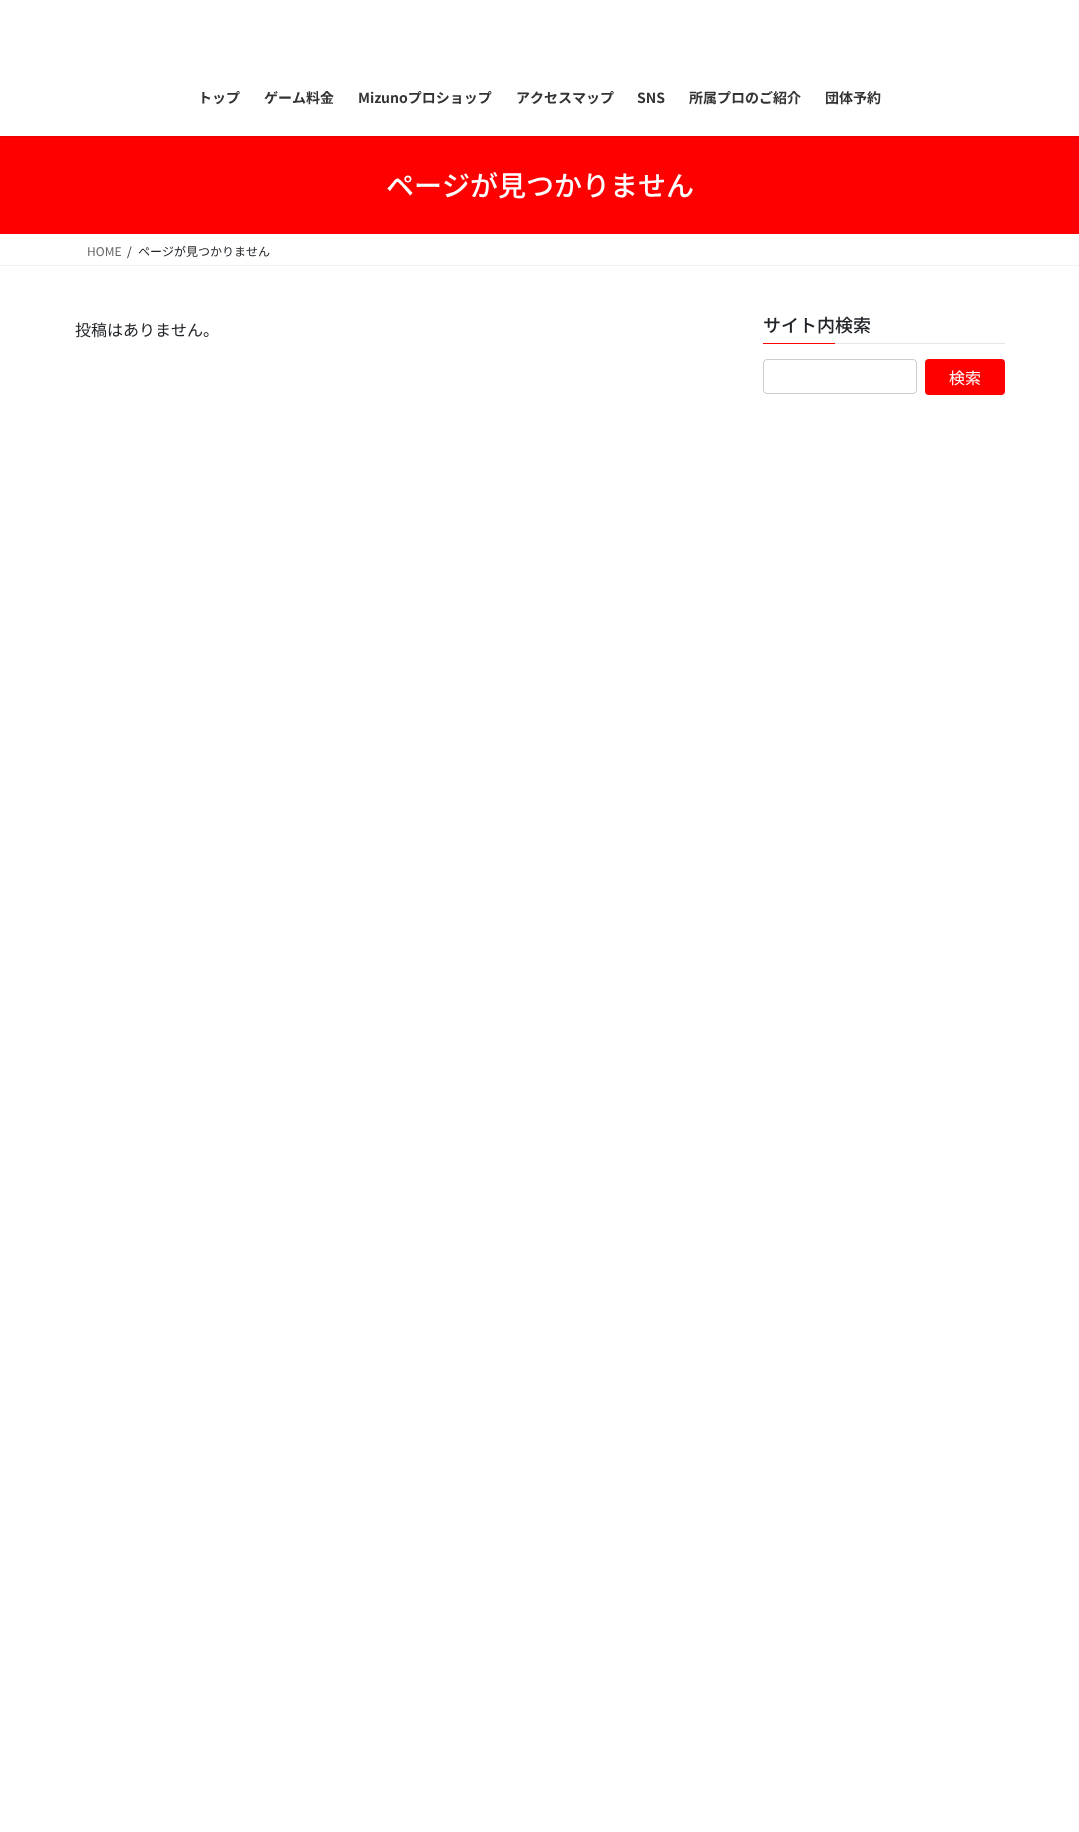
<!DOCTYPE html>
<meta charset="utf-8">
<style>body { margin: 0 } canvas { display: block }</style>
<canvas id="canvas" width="1079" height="1832"></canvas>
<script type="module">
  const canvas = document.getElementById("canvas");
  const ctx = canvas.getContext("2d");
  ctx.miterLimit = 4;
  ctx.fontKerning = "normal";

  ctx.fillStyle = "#ffffff";
  ctx.fillRect(0, 0, 1079, 1832);
  ctx.fillStyle = "#ff0000";
  ctx.fillRect(0, 136, 1079, 98);
  ctx.save();
  ctx.beginPath();
  ctx.rect(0, 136, 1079, 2);
  ctx.clip();
  ctx.fillStyle = "rgba(0, 0, 0, 0.1)";
  ctx.filter = "blur(1.5px)";
  ctx.beginPath();
  ctx.rect(0, 1, 1079, 136);
  ctx.fill();
  ctx.filter = "none";
  ctx.restore();
  ctx.font = "bold 14px Noto Sans JP";
  ctx.fillStyle = "#333333";
  ctx.fillText("トップ", 198, 103);
  ctx.fillText("ゲーム料金", 264, 103);
  ctx.fillText("Mizunoプロショップ", 358, 103);
  ctx.fillText("アクセスマップ", 516, 103);
  ctx.fillText("SNS", 637, 103);
  ctx.fillText("所属プロのご紹介", 689, 103);
  ctx.fillText("団体予約", 825, 103);
  ctx.font = "500 28px Noto Sans JP";
  ctx.fillStyle = "#ffffff";
  ctx.fillText("ページが見つかりません", 386, 196);
  ctx.fillStyle = "#f2f2f2";
  ctx.fillRect(0, 265, 1079, 1);
  ctx.font = "12px Noto Sans JP";
  ctx.fillStyle = "#666666";
  ctx.fillText("HOME", 87, 256);
  ctx.fillStyle = "#212529";
  ctx.fillText("/", 127, 256);
  ctx.fillText("ページが見つかりません", 138, 256);
  ctx.font = "16px Noto Sans JP";
  ctx.fillText("投稿はありません。", 75, 336);
  ctx.fillStyle = "#e6e6e6";
  ctx.fillRect(835, 343, 170, 1);
  ctx.font = "500 18px Noto Sans JP";
  ctx.fillStyle = "#212529";
  ctx.fillText("サイト内検索", 763, 332);
  ctx.fillStyle = "#ff0000";
  ctx.fillRect(763, 343, 72, 1);
  ctx.beginPath();
  ctx.roundRect(763.5, 359.5, 153, 34, 3.5);
  ctx.strokeStyle = "#cccccc";
  ctx.stroke();
  ctx.beginPath();
  ctx.roundRect(925, 359, 80, 36, 4);
  ctx.fill();
  ctx.font = "16px Noto Sans JP";
  ctx.fillStyle = "#ffffff";
  ctx.fillText("検索", 949, 384);
</script>
